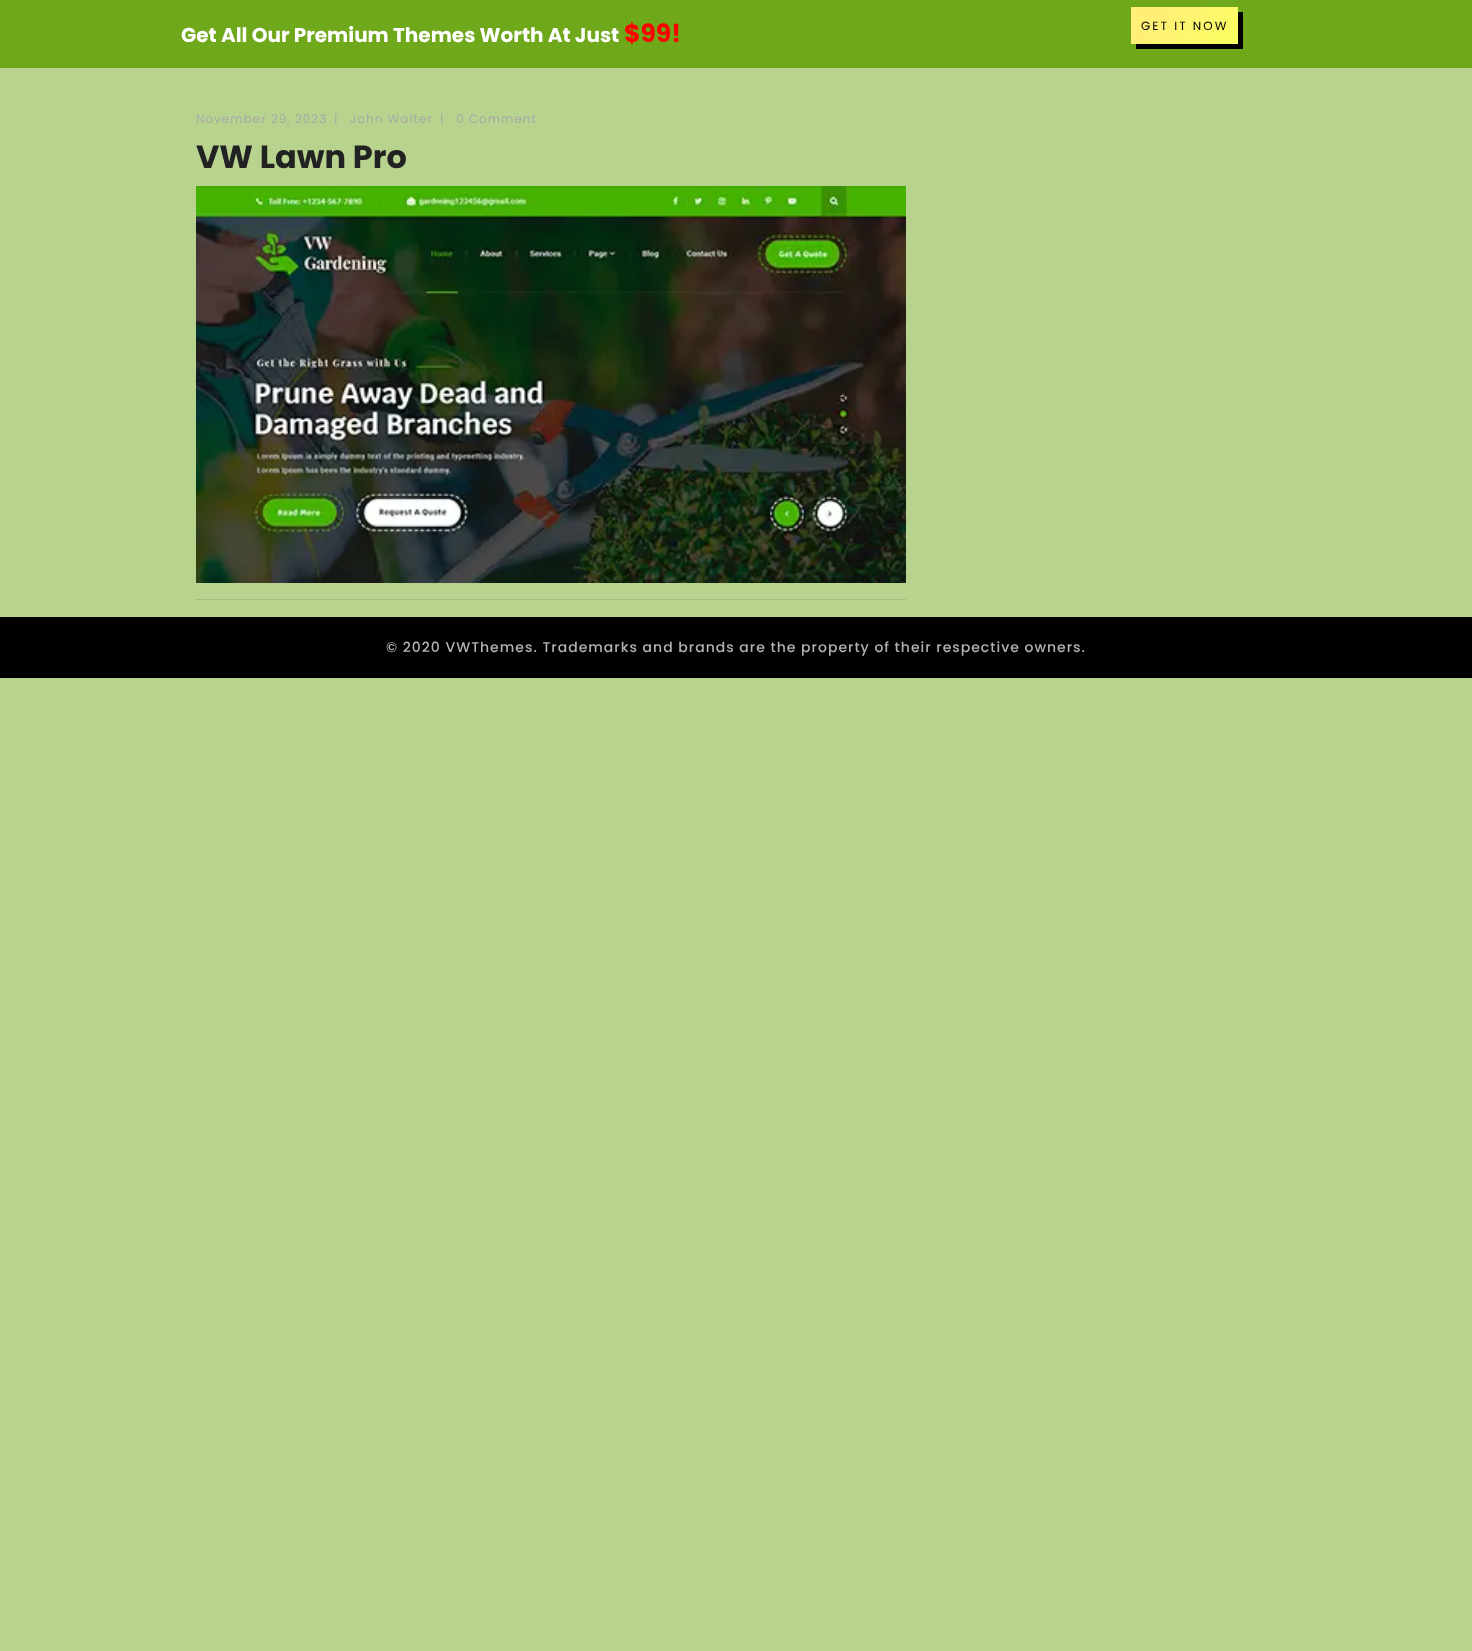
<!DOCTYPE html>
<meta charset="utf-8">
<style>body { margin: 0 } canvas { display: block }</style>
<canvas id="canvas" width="1472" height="1651"></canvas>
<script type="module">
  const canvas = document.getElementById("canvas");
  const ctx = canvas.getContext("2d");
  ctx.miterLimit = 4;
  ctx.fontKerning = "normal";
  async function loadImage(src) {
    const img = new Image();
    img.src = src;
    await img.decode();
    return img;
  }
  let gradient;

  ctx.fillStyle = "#b7d38d";
  ctx.fillRect(0, 0, 1472, 1651);
  ctx.fillStyle = "#6fa81b";
  ctx.fillRect(0, 0, 1472, 68);
  ctx.font = "bold 20px Poppins";
  ctx.fillStyle = "#ffffff";
  ctx.fillText("Get All Our Premium Themes Worth At Just", 181, 42);
  ctx.font = "bold 25px Poppins";
  ctx.fillStyle = "#ff0000";
  ctx.fillText("$99!", 624, 42);
  ctx.fillStyle = "#000000";
  ctx.filter = "blur(0.5px)";
  ctx.beginPath();
  ctx.rect(1136, 12, 107, 37);
  ctx.fill();
  ctx.filter = "none";
  gradient = ctx.createLinearGradient(1221, 61, 1149, -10);
  gradient.addColorStop(0, "#f9ff60");
  gradient.addColorStop(0.74, "#ffef77");
  ctx.fillStyle = gradient;
  ctx.fillRect(1131, 7, 107, 37);
  ctx.letterSpacing = "2px";
  ctx.font = "12px Poppins";
  ctx.fillStyle = "#000000";
  ctx.fillText("GET IT NOW", 1141, 30);
  ctx.letterSpacing = "1px";
  ctx.fillStyle = "#a9a9a9";
  ctx.fillText("November 29, 2023", 196, 123);
  ctx.fillText("|", 334, 123);
  ctx.fillText("John Walter", 350, 123);
  ctx.fillText("|", 440, 123);
  ctx.fillText("0 Comment", 456, 123);
  ctx.letterSpacing = "0px";
  ctx.font = "bold 32px Poppins";
  ctx.fillStyle = "#222222";
  ctx.fillText("VW Lawn Pro", 196, 168);
  ctx.drawImage(await loadImage("img1.png"), 196, 186, 710, 397);
  ctx.fillStyle = "#a5be7f";
  ctx.fillRect(196, 599, 710, 1);
  ctx.fillStyle = "#000000";
  ctx.fillRect(0, 617, 1472, 61);
  ctx.letterSpacing = "1px";
  ctx.font = "500 14px Poppins";
  ctx.fillStyle = "#b3b3b3";
  ctx.fillText("© 2020 VWThemes. Trademarks and brands are the property of their respective owners.", 386, 652);
</script>
